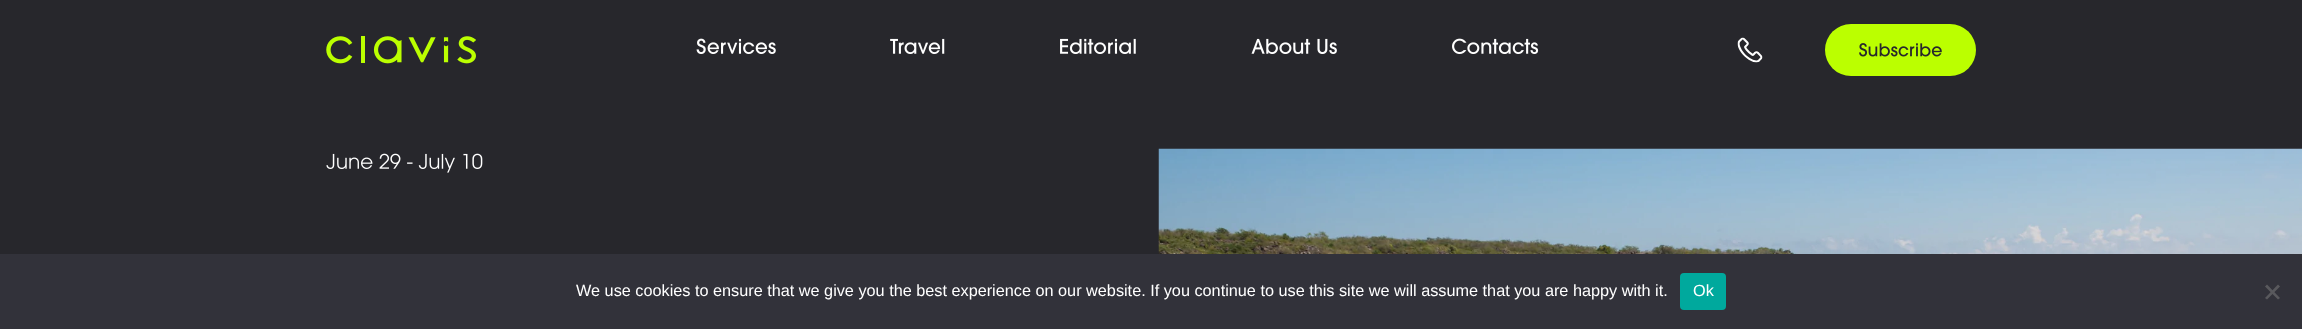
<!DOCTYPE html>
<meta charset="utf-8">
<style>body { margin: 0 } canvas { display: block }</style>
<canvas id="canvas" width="2302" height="329"></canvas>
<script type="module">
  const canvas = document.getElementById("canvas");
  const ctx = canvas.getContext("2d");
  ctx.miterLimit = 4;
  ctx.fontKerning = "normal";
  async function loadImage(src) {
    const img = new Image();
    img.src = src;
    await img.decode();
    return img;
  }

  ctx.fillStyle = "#27272c";
  ctx.fillRect(0, 0, 2302, 329);
  ctx.drawImage(await loadImage("img1.png"), 326, 36, 150, 28);
  ctx.drawImage(await loadImage("img2.png"), 696, 38, 80, 16);
  ctx.drawImage(await loadImage("img3.png"), 890, 38, 55, 16);
  ctx.drawImage(await loadImage("img4.png"), 1060, 38, 76, 16);
  ctx.drawImage(await loadImage("img5.png"), 1251, 38, 86, 16);
  ctx.drawImage(await loadImage("img6.png"), 1452, 38, 87, 16);
  ctx.drawImage(await loadImage("img7.png"), 1737, 37, 26, 26);
  ctx.fillStyle = "#bbff00";
  ctx.beginPath();
  ctx.roundRect(1825, 24, 151, 52, 26);
  ctx.fill();
  ctx.drawImage(await loadImage("img8.png"), 1859, 43, 83, 14);
  ctx.drawImage(await loadImage("img9.png"), 326, 153, 157, 20);
  ctx.drawImage(await loadImage("img10.png"), 1158, 148, 1144, 106);
  ctx.fillStyle = "#32323a";
  ctx.fillRect(0, 254, 2302, 75);
  ctx.font = "16.25px Liberation Sans";
  ctx.fillStyle = "#ffffff";
  ctx.fillText("We use cookies to ensure that we give you the best experience on our website. If you continue to use this site we will assume that you are happy with it.", 576, 296);
  ctx.fillStyle = "#00a99d";
  ctx.beginPath();
  ctx.roundRect(1680, 273, 46, 37, 4);
  ctx.fill();
  ctx.fillStyle = "#ffffff";
  ctx.fillText("Ok", 1693, 296);
  ctx.fillStyle = "#59595d";
  ctx.beginPath();
  ctx.moveTo(2278, 284.5);
  ctx.lineTo(2280, 286.5);
  ctx.lineTo(2267, 299.5);
  ctx.lineTo(2265, 298);
  ctx.closePath();
  ctx.fill();
  ctx.beginPath();
  ctx.moveTo(2265, 286.5);
  ctx.lineTo(2267, 284.5);
  ctx.lineTo(2280, 298);
  ctx.lineTo(2278, 299.5);
  ctx.closePath();
  ctx.fill();
</script>
